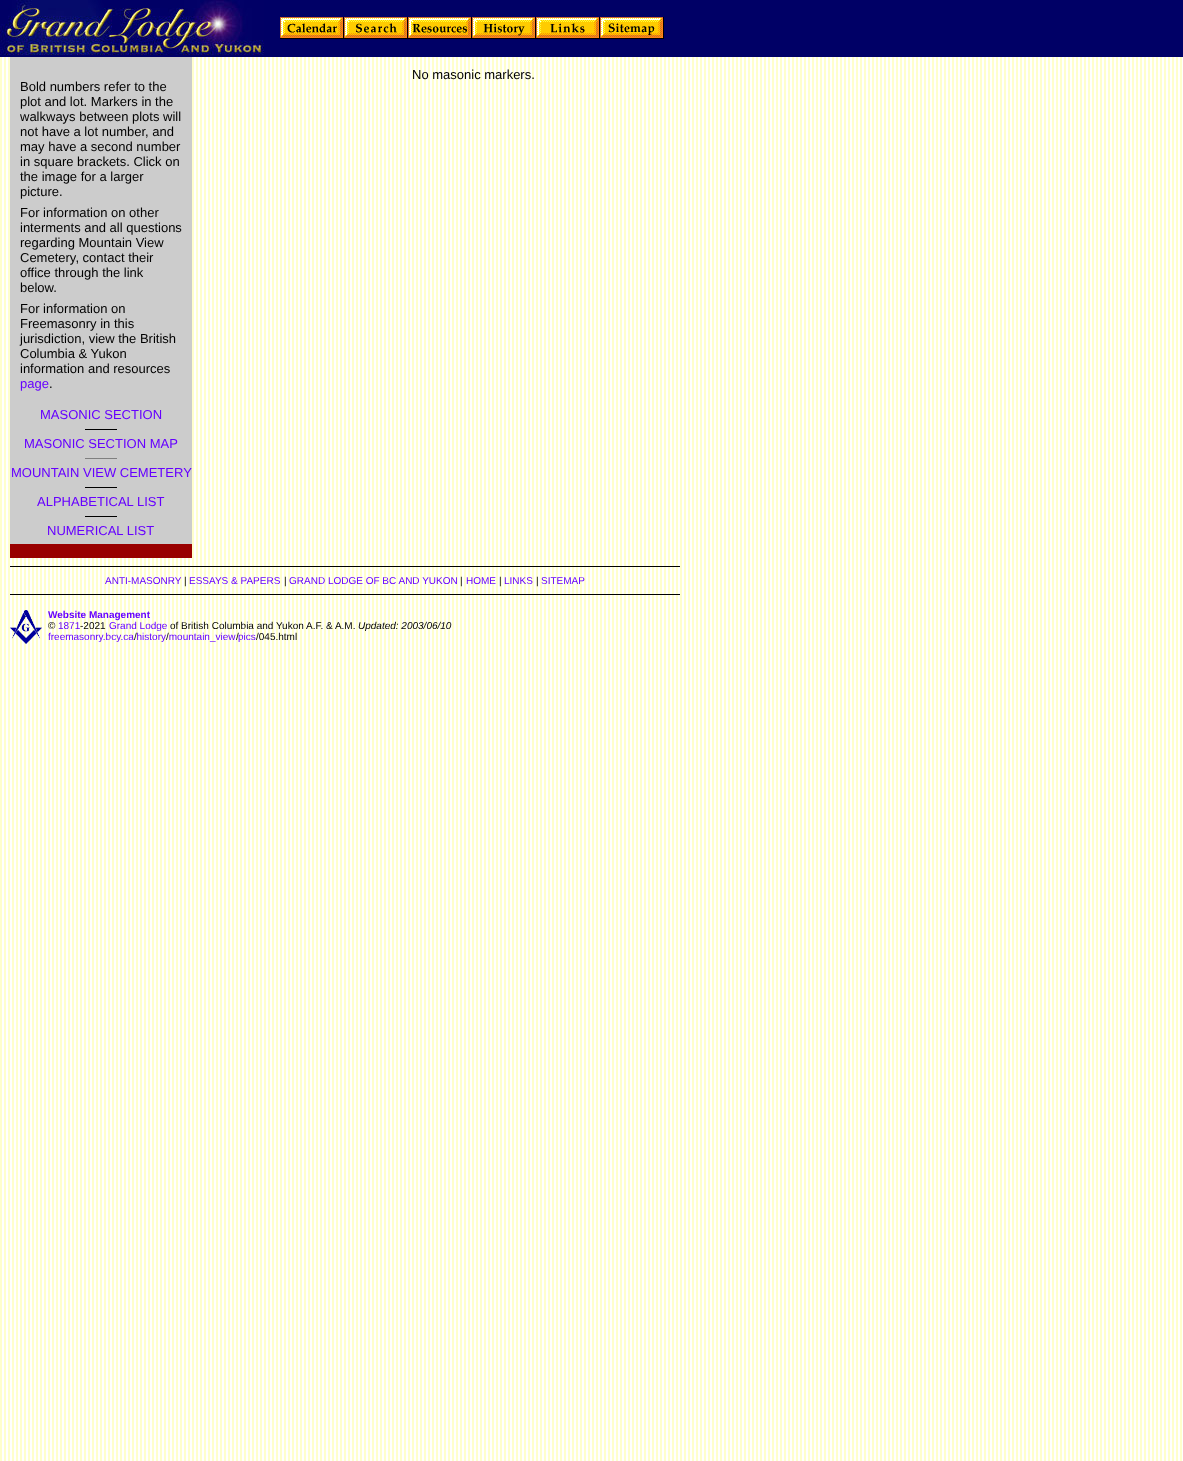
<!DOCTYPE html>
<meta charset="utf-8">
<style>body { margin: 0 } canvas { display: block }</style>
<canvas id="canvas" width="1183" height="1461"></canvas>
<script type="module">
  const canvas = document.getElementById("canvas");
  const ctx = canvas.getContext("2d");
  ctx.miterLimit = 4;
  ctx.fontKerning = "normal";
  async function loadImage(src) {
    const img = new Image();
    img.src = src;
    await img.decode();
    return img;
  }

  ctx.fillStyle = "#ffffff";
  ctx.fillRect(0, 0, 1183, 1461);
  ctx.drawImage(await loadImage("img1.png"), 0, 57, 1182, 1404);
  ctx.fillStyle = "#000066";
  ctx.fillRect(0, 0, 1183, 57);
  ctx.drawImage(await loadImage("img2.png"), 0, 0, 264, 55);
  ctx.drawImage(await loadImage("img3.png"), 280, 17, 64, 22);
  ctx.drawImage(await loadImage("img4.png"), 344, 17, 64, 22);
  ctx.drawImage(await loadImage("img5.png"), 408, 17, 64, 22);
  ctx.drawImage(await loadImage("img6.png"), 472, 17, 64, 22);
  ctx.drawImage(await loadImage("img7.png"), 536, 17, 64, 22);
  ctx.drawImage(await loadImage("img8.png"), 600, 17, 64, 22);
  ctx.font = "13px Liberation Sans";
  ctx.fillStyle = "#000000";
  ctx.fillText("No masonic markers.", 412, 79);
  ctx.fillStyle = "#cccccc";
  ctx.fillRect(10, 57, 182, 487);
  ctx.fillStyle = "#000000";
  ctx.fillText("Bold numbers refer to the", 20, 91);
  ctx.fillText("plot and lot. Markers in the", 20, 106);
  ctx.fillText("walkways between plots will", 20, 121);
  ctx.fillText("not have a lot number, and", 20, 136);
  ctx.fillText("may have a second number", 20, 151);
  ctx.fillText("in square brackets. Click on", 20, 166);
  ctx.fillText("the image for a larger", 20, 181);
  ctx.fillText("picture.", 20, 196);
  ctx.fillText("For information on other", 20, 217);
  ctx.fillText("interments and all questions", 20, 232);
  ctx.fillText("regarding Mountain View", 20, 247);
  ctx.fillText("Cemetery, contact their", 20, 262);
  ctx.fillText("office through the link", 20, 277);
  ctx.fillText("below.", 20, 292);
  ctx.fillText("For information on", 20, 313);
  ctx.fillText("Freemasonry in this", 20, 328);
  ctx.fillText("jurisdiction, view the British", 20, 343);
  ctx.fillText("Columbia & Yukon", 20, 358);
  ctx.fillText("information and resources", 20, 373);
  ctx.fillStyle = "#6600ff";
  ctx.fillText("page", 20, 388);
  ctx.fillStyle = "#000000";
  ctx.fillText(".", 49, 388);
  ctx.fillStyle = "#6600ff";
  ctx.fillText("MASONIC SECTION", 40, 419);
  ctx.fillStyle = "#000000";
  ctx.fillRect(85, 429, 32, 1);
  ctx.fillStyle = "#6600ff";
  ctx.fillText("MASONIC SECTION MAP", 24, 448);
  ctx.fillStyle = "#808080";
  ctx.fillRect(85, 458, 32, 1);
  ctx.fillStyle = "#6600ff";
  ctx.fillText("MOUNTAIN VIEW CEMETERY", 11, 477);
  ctx.fillStyle = "#000000";
  ctx.fillRect(85, 487, 32, 1);
  ctx.fillStyle = "#6600ff";
  ctx.fillText("ALPHABETICAL LIST", 37, 506);
  ctx.fillStyle = "#000000";
  ctx.fillRect(85, 516, 32, 1);
  ctx.fillStyle = "#6600ff";
  ctx.fillText("NUMERICAL LIST", 47, 535);
  ctx.fillStyle = "#990000";
  ctx.fillRect(10, 544, 182, 14);
  ctx.fillStyle = "#000000";
  ctx.fillRect(10, 566, 670, 1);
  ctx.font = "10px Liberation Sans";
  ctx.fillStyle = "#6600ff";
  ctx.fillText("ANTI-MASONRY", 105, 584);
  ctx.fillStyle = "#000000";
  ctx.fillText("|", 184, 584);
  ctx.fillStyle = "#6600ff";
  ctx.fillText("ESSAYS & PAPERS", 189, 584);
  ctx.fillStyle = "#000000";
  ctx.fillText("|", 284, 584);
  ctx.fillStyle = "#6600ff";
  ctx.fillText("GRAND LODGE OF BC AND YUKON", 289, 584);
  ctx.fillStyle = "#000000";
  ctx.fillText("|", 460, 584);
  ctx.fillStyle = "#6600ff";
  ctx.fillText("HOME", 466, 584);
  ctx.fillStyle = "#000000";
  ctx.fillText("|", 499, 584);
  ctx.fillStyle = "#6600ff";
  ctx.fillText("LINKS", 504, 584);
  ctx.fillStyle = "#000000";
  ctx.fillText("|", 536, 584);
  ctx.fillStyle = "#6600ff";
  ctx.fillText("SITEMAP", 541, 584);
  ctx.fillStyle = "#000000";
  ctx.fillRect(10, 594, 670, 1);
  ctx.drawImage(await loadImage("img9.png"), 10, 610, 32, 34);
  ctx.font = "bold 10px Liberation Sans";
  ctx.fillStyle = "#6600ff";
  ctx.fillText("Website Management", 48, 618);
  ctx.font = "10px Liberation Sans";
  ctx.fillStyle = "#000000";
  ctx.fillText("©", 48, 629);
  ctx.fillStyle = "#6600ff";
  ctx.fillText("1871", 58, 629);
  ctx.fillStyle = "#000000";
  ctx.fillText("-2021", 80, 629);
  ctx.fillStyle = "#6600ff";
  ctx.fillText("Grand Lodge", 109, 629);
  ctx.fillStyle = "#000000";
  ctx.fillText("of British Columbia and Yukon A.F. & A.M.", 170, 629);
  ctx.font = "italic 10px Liberation Sans";
  ctx.fillText("Updated: 2003/06/10", 358, 629);
  ctx.font = "10px Liberation Sans";
  ctx.fillStyle = "#6600ff";
  ctx.fillText("freemasonry.bcy.ca history mountain_view", 48, 640);
  ctx.fillStyle = "#000000";
  ctx.fillText("/", 134, 640);
  ctx.fillText("/", 166, 640);
  ctx.fillText("/", 236, 640);
  ctx.fillStyle = "#6600ff";
  ctx.fillText("pics", 238, 640);
  ctx.fillStyle = "#000000";
  ctx.fillText("/045.html", 256, 640);
</script>
